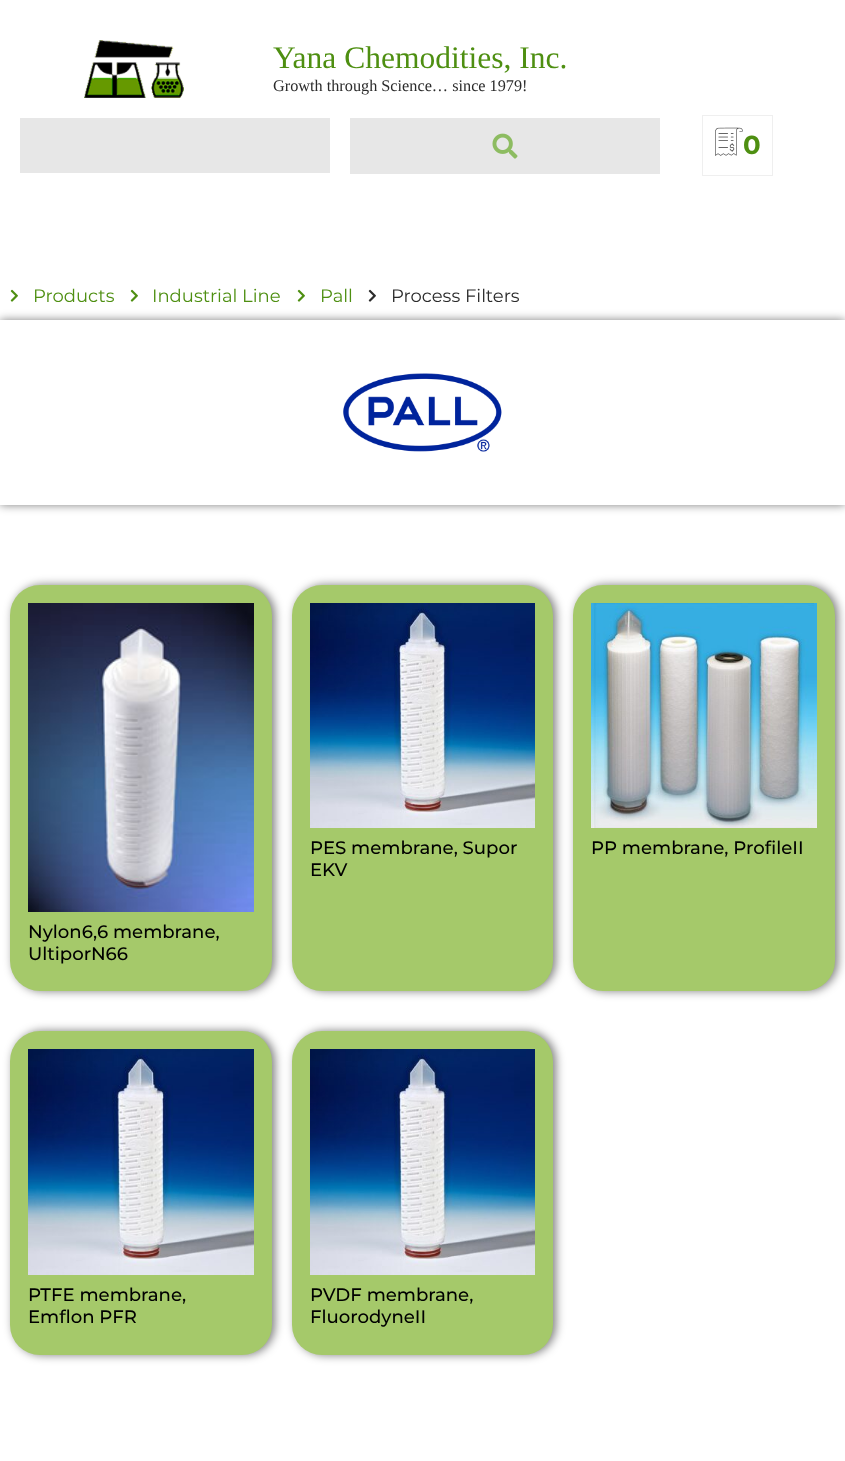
<!DOCTYPE html>
<meta charset="utf-8">
<style>body { margin: 0 } canvas { display: block }</style>
<canvas id="canvas" width="845" height="1461"></canvas>
<script type="module">
  const canvas = document.getElementById("canvas");
  const ctx = canvas.getContext("2d");
  ctx.miterLimit = 4;
  ctx.fontKerning = "normal";
  async function loadImage(src) {
    const img = new Image();
    img.src = src;
    await img.decode();
    return img;
  }

  ctx.fillStyle = "#ffffff";
  ctx.fillRect(0, 0, 845, 1461);
  ctx.drawImage(await loadImage("img1.png"), 84, 40, 100, 58);
  ctx.font = "31.5px Liberation Serif";
  ctx.fillStyle = "#4e8f11";
  ctx.fillText("Yana Chemodities, Inc.", 273, 68);
  ctx.font = "16.25px Liberation Serif";
  ctx.fillStyle = "#2b2b2b";
  ctx.fillText("Growth through Science… since 1979!", 273, 91);
  ctx.fillStyle = "#e7e7e7";
  ctx.fillRect(20, 118, 310, 55);
  ctx.fillRect(350, 118, 310, 56);
  ctx.drawImage(await loadImage("img2.png"), 492, 133, 26, 26);
  ctx.strokeStyle = "#efefef";
  ctx.strokeRect(702.5, 115.5, 70, 60);
  ctx.drawImage(await loadImage("img3.png"), 715, 127, 28, 29);
  ctx.font = "bold 26px Montserrat";
  ctx.fillStyle = "#4e8f11";
  ctx.fillText("0", 743, 154);
  ctx.drawImage(await loadImage("img4.png"), 10, 289, 8, 13);
  ctx.font = "18px Montserrat";
  ctx.fillText("Products", 33, 302);
  ctx.drawImage(await loadImage("img4.png"), 130, 289, 8, 13);
  ctx.fillText("Industrial Line", 152, 302);
  ctx.drawImage(await loadImage("img4.png"), 297, 289, 8, 13);
  ctx.fillText("Pall", 320, 302);
  ctx.drawImage(await loadImage("img5.png"), 368, 289, 8, 13);
  ctx.fillStyle = "#2b2b2b";
  ctx.fillText("Process Filters", 391, 302);
  ctx.save();
  ctx.beginPath();
  ctx.moveTo(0, 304);
  ctx.lineTo(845, 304);
  ctx.lineTo(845, 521);
  ctx.lineTo(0, 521);
  ctx.closePath();
  ctx.moveTo(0, 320);
  ctx.lineTo(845, 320);
  ctx.lineTo(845, 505);
  ctx.lineTo(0, 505);
  ctx.closePath();
  ctx.clip("evenodd");
  ctx.fillStyle = "rgba(0, 0, 0, 0.5)";
  ctx.filter = "blur(5px)";
  ctx.beginPath();
  ctx.rect(0, 320, 845, 185);
  ctx.fill();
  ctx.filter = "none";
  ctx.restore();
  ctx.drawImage(await loadImage("img6.png"), 343, 373, 159, 79);
  ctx.fillStyle = "rgba(0, 0, 0, 0.5)";
  ctx.filter = "blur(5px)";
  ctx.beginPath();
  ctx.roundRect(295, 585, 261, 406, 30);
  ctx.fill();
  ctx.filter = "none";
  ctx.fillStyle = "#a5c96a";
  ctx.beginPath();
  ctx.roundRect(292, 585, 261, 406, 30);
  ctx.fill();
  ctx.drawImage(await loadImage("img7.png"), 310, 603, 225, 225);
  ctx.font = "500 18.1px Montserrat";
  ctx.fillStyle = "#000000";
  ctx.fillText("PES membrane, Supor", 310, 854);
  ctx.fillText("EKV", 310, 876);
  ctx.fillStyle = "rgba(0, 0, 0, 0.5)";
  ctx.filter = "blur(5px)";
  ctx.beginPath();
  ctx.roundRect(576, 585, 262, 406, 30);
  ctx.fill();
  ctx.filter = "none";
  ctx.fillStyle = "#a5c96a";
  ctx.beginPath();
  ctx.roundRect(573, 585, 262, 406, 30);
  ctx.fill();
  ctx.drawImage(await loadImage("img8.png"), 591, 603, 226, 225);
  ctx.fillStyle = "#000000";
  ctx.fillText("PP membrane, ProfileII", 591, 854);
  ctx.fillStyle = "rgba(0, 0, 0, 0.5)";
  ctx.filter = "blur(5px)";
  ctx.beginPath();
  ctx.roundRect(13, 585, 262, 406, 30);
  ctx.fill();
  ctx.filter = "none";
  ctx.fillStyle = "#a5c96a";
  ctx.beginPath();
  ctx.roundRect(10, 585, 262, 406, 30);
  ctx.fill();
  ctx.drawImage(await loadImage("img9.png"), 28, 603, 226, 309);
  ctx.fillStyle = "#000000";
  ctx.fillText("Nylon6,6 membrane,", 28, 938);
  ctx.fillText("UltiporN66", 28, 960);
  ctx.fillStyle = "rgba(0, 0, 0, 0.5)";
  ctx.filter = "blur(5px)";
  ctx.beginPath();
  ctx.roundRect(13, 1031, 262, 324, 30);
  ctx.fill();
  ctx.filter = "none";
  ctx.fillStyle = "#a5c96a";
  ctx.beginPath();
  ctx.roundRect(10, 1031, 262, 324, 30);
  ctx.fill();
  ctx.drawImage(await loadImage("img10.png"), 28, 1049, 226, 226);
  ctx.fillStyle = "#000000";
  ctx.fillText("PTFE membrane,", 28, 1301);
  ctx.fillText("Emflon PFR", 28, 1323);
  ctx.fillStyle = "rgba(0, 0, 0, 0.5)";
  ctx.filter = "blur(5px)";
  ctx.beginPath();
  ctx.roundRect(295, 1031, 261, 324, 30);
  ctx.fill();
  ctx.filter = "none";
  ctx.fillStyle = "#a5c96a";
  ctx.beginPath();
  ctx.roundRect(292, 1031, 261, 324, 30);
  ctx.fill();
  ctx.drawImage(await loadImage("img11.png"), 310, 1049, 225, 226);
  ctx.fillStyle = "#000000";
  ctx.fillText("PVDF membrane,", 310, 1301);
  ctx.fillText("FluorodyneII", 310, 1323);
</script>
